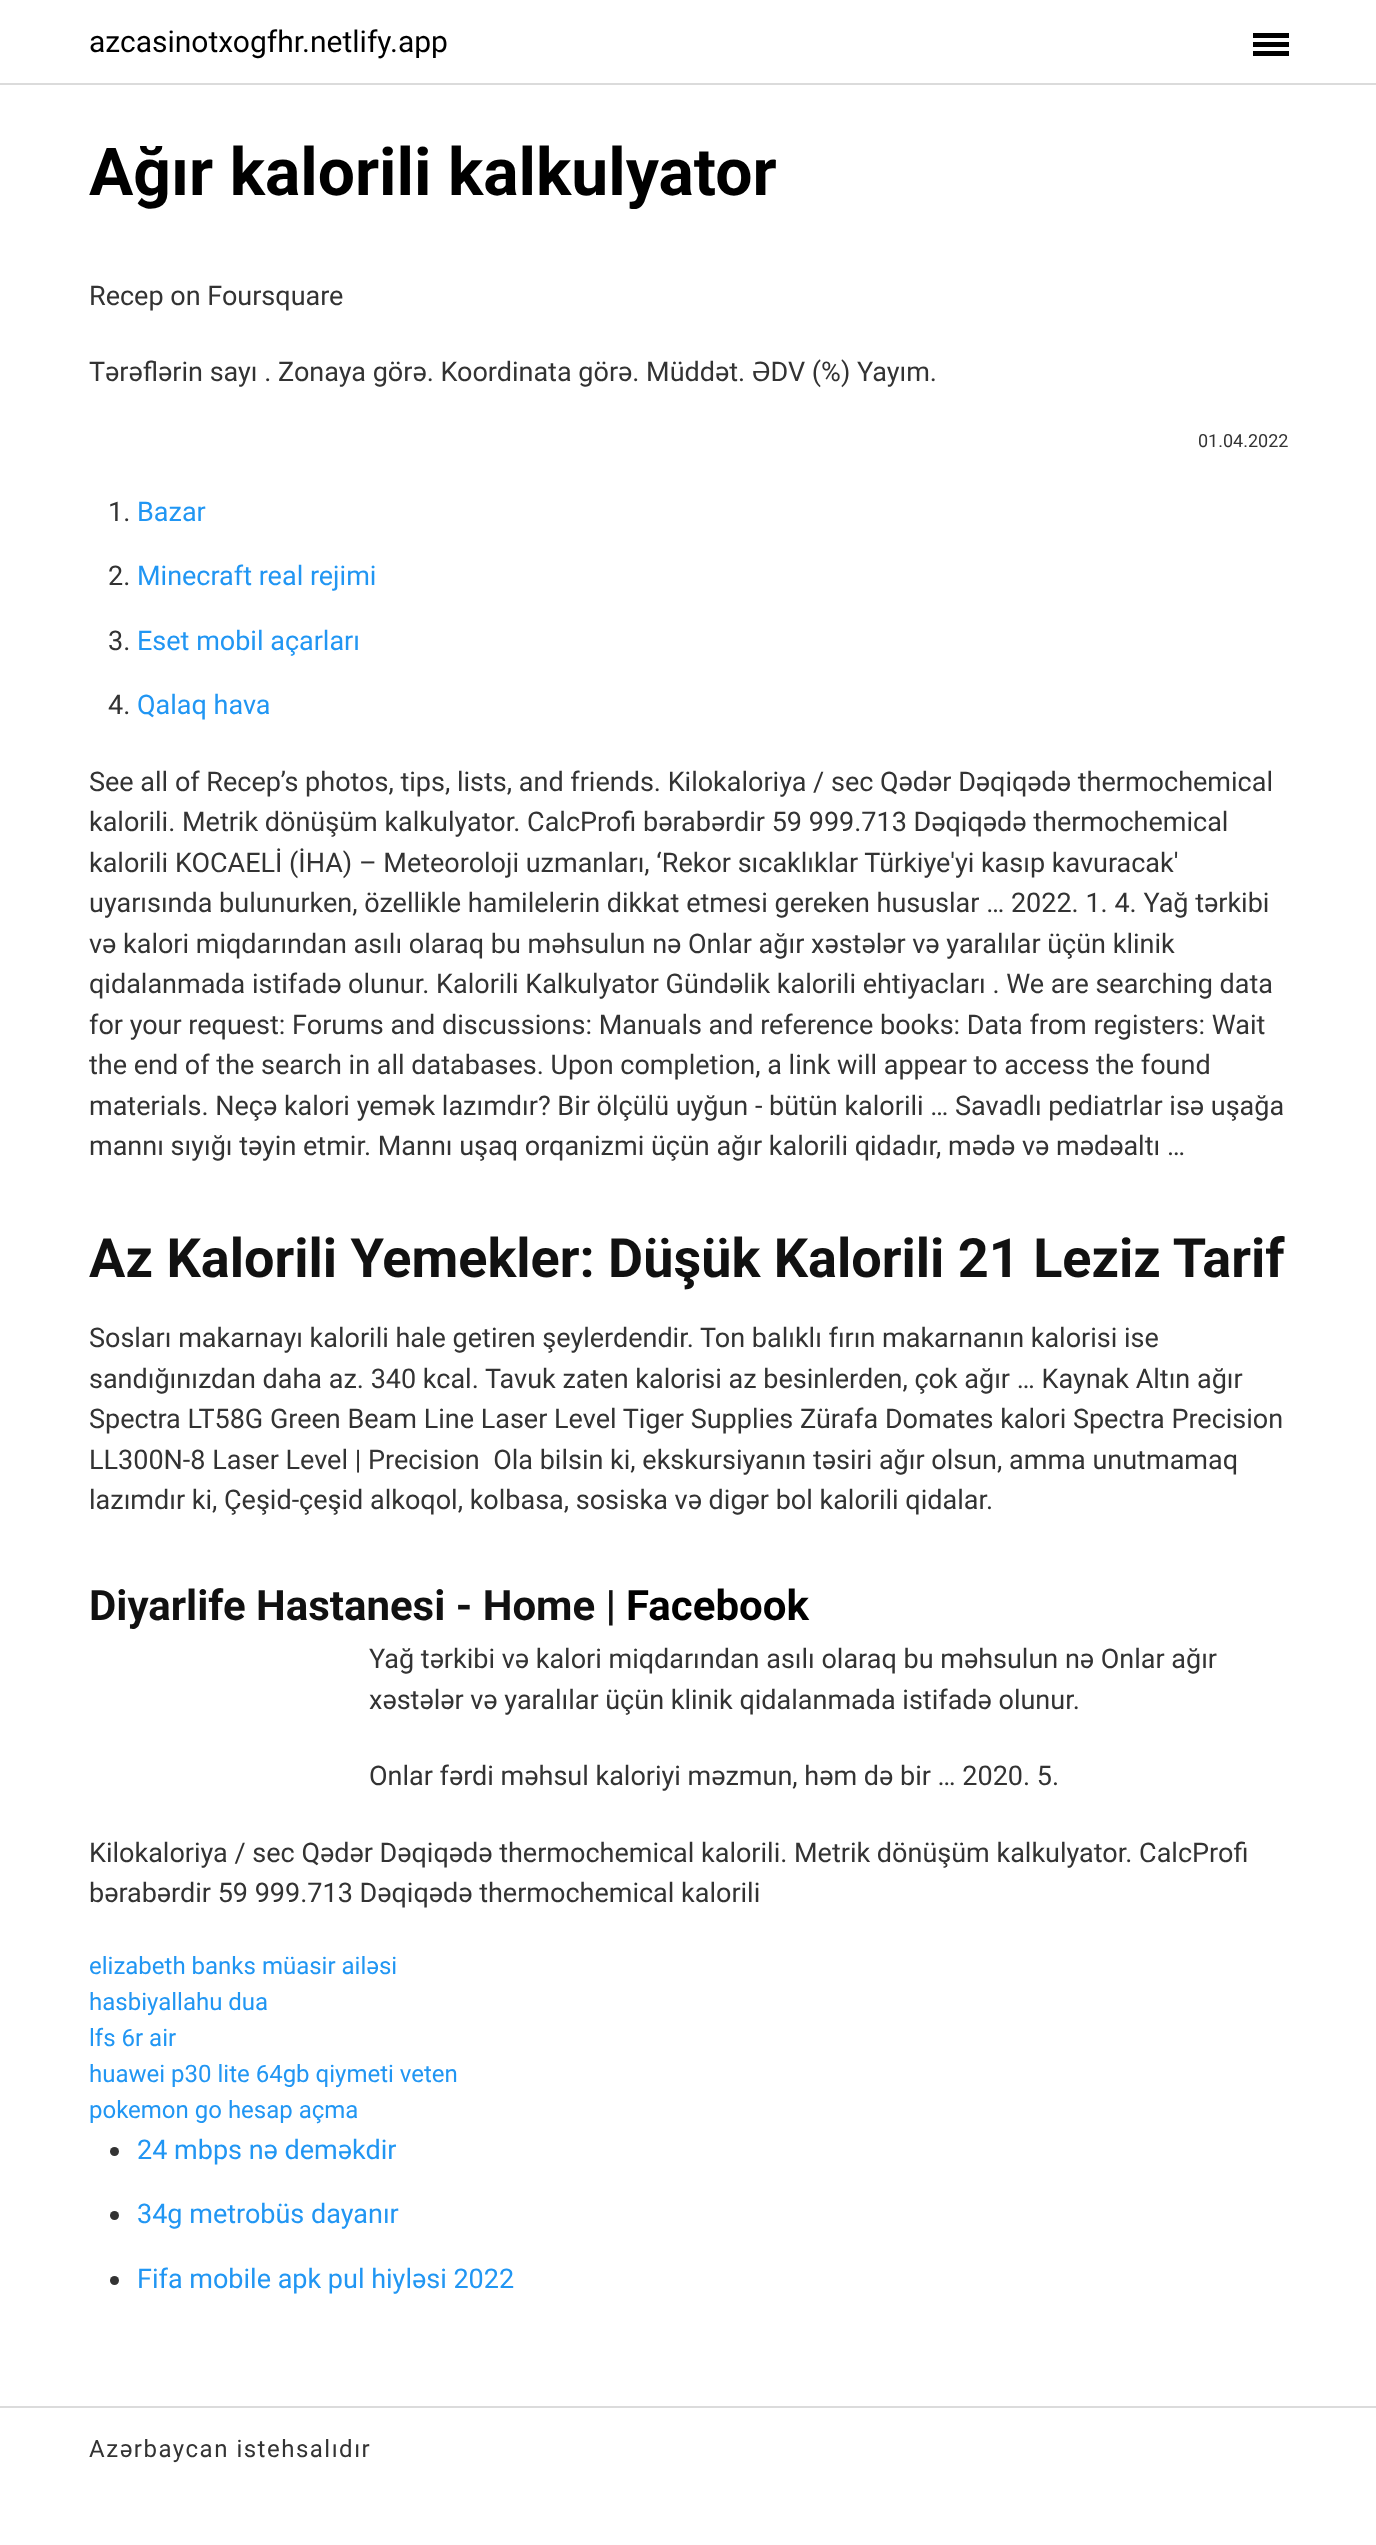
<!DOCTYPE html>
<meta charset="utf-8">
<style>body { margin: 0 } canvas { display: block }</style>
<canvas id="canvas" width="1376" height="2545"></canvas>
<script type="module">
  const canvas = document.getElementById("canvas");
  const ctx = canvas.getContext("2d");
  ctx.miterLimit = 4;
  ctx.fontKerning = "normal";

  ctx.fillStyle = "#ffffff";
  ctx.fillRect(0, 0, 1376, 2545);
  ctx.fillStyle = "#dbdbdb";
  ctx.fillRect(0, 83, 1376, 2);
  ctx.font = "30px Roboto";
  ctx.fillStyle = "#000000";
  ctx.fillText("azcasinotxogfhr.netlify.app", 89, 52);
  ctx.fillRect(1253, 42, 36, 5);
  ctx.fillRect(1253, 33, 36, 5);
  ctx.fillRect(1253, 51, 36, 5);
  ctx.font = "bold 66px Roboto";
  ctx.fillText("Ağır kalorili kalkulyator", 89, 195);
  ctx.font = "27px Roboto";
  ctx.fillStyle = "#333333";
  ctx.fillText("Recep on Foursquare", 89, 305);
  ctx.fillText("Tərəflərin sayı . Zonaya görə. Koordinata görə. Müddət. ƏDV (%) Yayım.", 89, 381);
  ctx.font = "18px Roboto";
  ctx.fillText("01.04.2022", 1198, 447);
  ctx.font = "27px Roboto";
  ctx.fillText("1.", 108, 521);
  ctx.fillStyle = "#2196f3";
  ctx.fillText("Bazar", 137, 521);
  ctx.fillStyle = "#333333";
  ctx.fillText("2.", 108, 585);
  ctx.fillStyle = "#2196f3";
  ctx.fillText("Minecraft real rejimi", 137, 585);
  ctx.fillStyle = "#333333";
  ctx.fillText("3.", 108, 650);
  ctx.fillStyle = "#2196f3";
  ctx.fillText("Eset mobil açarları", 137, 650);
  ctx.fillStyle = "#333333";
  ctx.fillText("4.", 108, 714);
  ctx.fillStyle = "#2196f3";
  ctx.fillText("Qalaq hava", 137, 714);
  ctx.fillStyle = "#333333";
  ctx.fillText("See all of Recep’s photos, tips, lists, and friends. Kilokaloriya / sec Qədər Dəqiqədə thermochemical", 89, 791);
  ctx.fillText("kalorili. Metrik dönüşüm kalkulyator. CalcProfi bərabərdir 59 999.713 Dəqiqədə thermochemical", 89, 831);
  ctx.fillText("kalorili KOCAELİ (İHA) – Meteoroloji uzmanları, ‘Rekor sıcaklıklar Türkiye'yi kasıp kavuracak'", 89, 872);
  ctx.fillText("uyarısında bulunurken, özellikle hamilelerin dikkat etmesi gereken hususlar … 2022. 1. 4. Yağ tərkibi", 89, 912);
  ctx.fillText("və kalori miqdarından asılı olaraq bu məhsulun nə Onlar ağır xəstələr və yaralılar üçün klinik", 89, 953);
  ctx.fillText("qidalanmada istifadə olunur. Kalorili Kalkulyator Gündəlik kalorili ehtiyacları . We are searching data", 89, 993);
  ctx.fillText("for your request: Forums and discussions: Manuals and reference books: Data from registers: Wait", 89, 1034);
  ctx.fillText("the end of the search in all databases. Upon completion, a link will appear to access the found", 89, 1074);
  ctx.fillText("materials. Neçə kalori yemək lazımdır? Bir ölçülü uyğun - bütün kalorili … Savadlı pediatrlar isə uşağa", 89, 1115);
  ctx.fillText("mannı sıyığı təyin etmir. Mannı uşaq orqanizmi üçün ağır kalorili qidadır, mədə və mədəaltı …", 89, 1155);
  ctx.font = "bold 54px Roboto";
  ctx.fillStyle = "#111111";
  ctx.fillText("Az Kalorili Yemekler: Düşük Kalorili 21 Leziz Tarif", 89, 1277);
  ctx.font = "27px Roboto";
  ctx.fillStyle = "#333333";
  ctx.fillText("Sosları makarnayı kalorili hale getiren şeylerdendir. Ton balıklı fırın makarnanın kalorisi ise", 89, 1347);
  ctx.fillText("sandığınızdan daha az. 340 kcal. Tavuk zaten kalorisi az besinlerden, çok ağır … Kaynak Altın ağır", 89, 1388);
  ctx.fillText("Spectra LT58G Green Beam Line Laser Level Tiger Supplies Zürafa Domates kalori Spectra Precision", 89, 1428);
  ctx.fillText("LL300N-8 Laser Level | Precision  Ola bilsin ki, ekskursiyanın təsiri ağır olsun, amma unutmamaq", 89, 1469);
  ctx.fillText("lazımdır ki, Çeşid-çeşid alkoqol, kolbasa, sosiska və digər bol kalorili qidalar.", 89, 1509);
  ctx.font = "bold 42px Roboto";
  ctx.fillStyle = "#111111";
  ctx.fillText("Diyarlife Hastanesi - Home |", 89, 1620);
  ctx.fillStyle = "#000000";
  ctx.fillText("Facebook", 626, 1620);
  ctx.font = "27px Roboto";
  ctx.fillStyle = "#333333";
  ctx.fillText("Yağ tərkibi və kalori miqdarından asılı olaraq bu məhsulun nə Onlar ağır", 369, 1668);
  ctx.fillText("xəstələr və yaralılar üçün klinik qidalanmada istifadə olunur.", 369, 1709);
  ctx.fillText("Onlar fərdi məhsul kaloriyi məzmun, həm də bir … 2020. 5.", 369, 1785);
  ctx.fillText("Kilokaloriya / sec Qədər Dəqiqədə thermochemical kalorili. Metrik dönüşüm kalkulyator. CalcProfi", 89, 1862);
  ctx.fillText("bərabərdir 59 999.713 Dəqiqədə thermochemical kalorili", 89, 1902);
  ctx.font = "24px Roboto";
  ctx.fillStyle = "#2196f3";
  ctx.fillText("elizabeth banks müasir ailəsi", 89, 1974);
  ctx.fillText("hasbiyallahu dua", 89, 2010);
  ctx.fillText("lfs 6r air", 89, 2046);
  ctx.fillText("huawei p30 lite 64gb qiymeti veten", 89, 2082);
  ctx.fillText("pokemon go hesap açma", 89, 2118);
  ctx.fillStyle = "#333333";
  ctx.beginPath();
  ctx.arc(114.5, 2151.5, 4.5, 0, Math.PI * 2);
  ctx.fill();
  ctx.font = "27px Roboto";
  ctx.fillStyle = "#2196f3";
  ctx.fillText("24 mbps nə deməkdir", 137, 2159);
  ctx.fillStyle = "#333333";
  ctx.beginPath();
  ctx.arc(114.5, 2215.5, 4.5, 0, Math.PI * 2);
  ctx.fill();
  ctx.fillStyle = "#2196f3";
  ctx.fillText("34g metrobüs dayanır", 137, 2223);
  ctx.fillStyle = "#333333";
  ctx.beginPath();
  ctx.arc(114.5, 2280.5, 4.5, 0, Math.PI * 2);
  ctx.fill();
  ctx.fillStyle = "#2196f3";
  ctx.fillText("Fifa mobile apk pul hiyləsi 2022", 137, 2288);
  ctx.fillStyle = "#dbdbdb";
  ctx.fillRect(0, 2406, 1376, 2);
  ctx.letterSpacing = "1.5px";
  ctx.font = "24px Roboto";
  ctx.fillStyle = "#333333";
  ctx.fillText("Azərbaycan istehsalıdır", 89, 2457);
</script>
